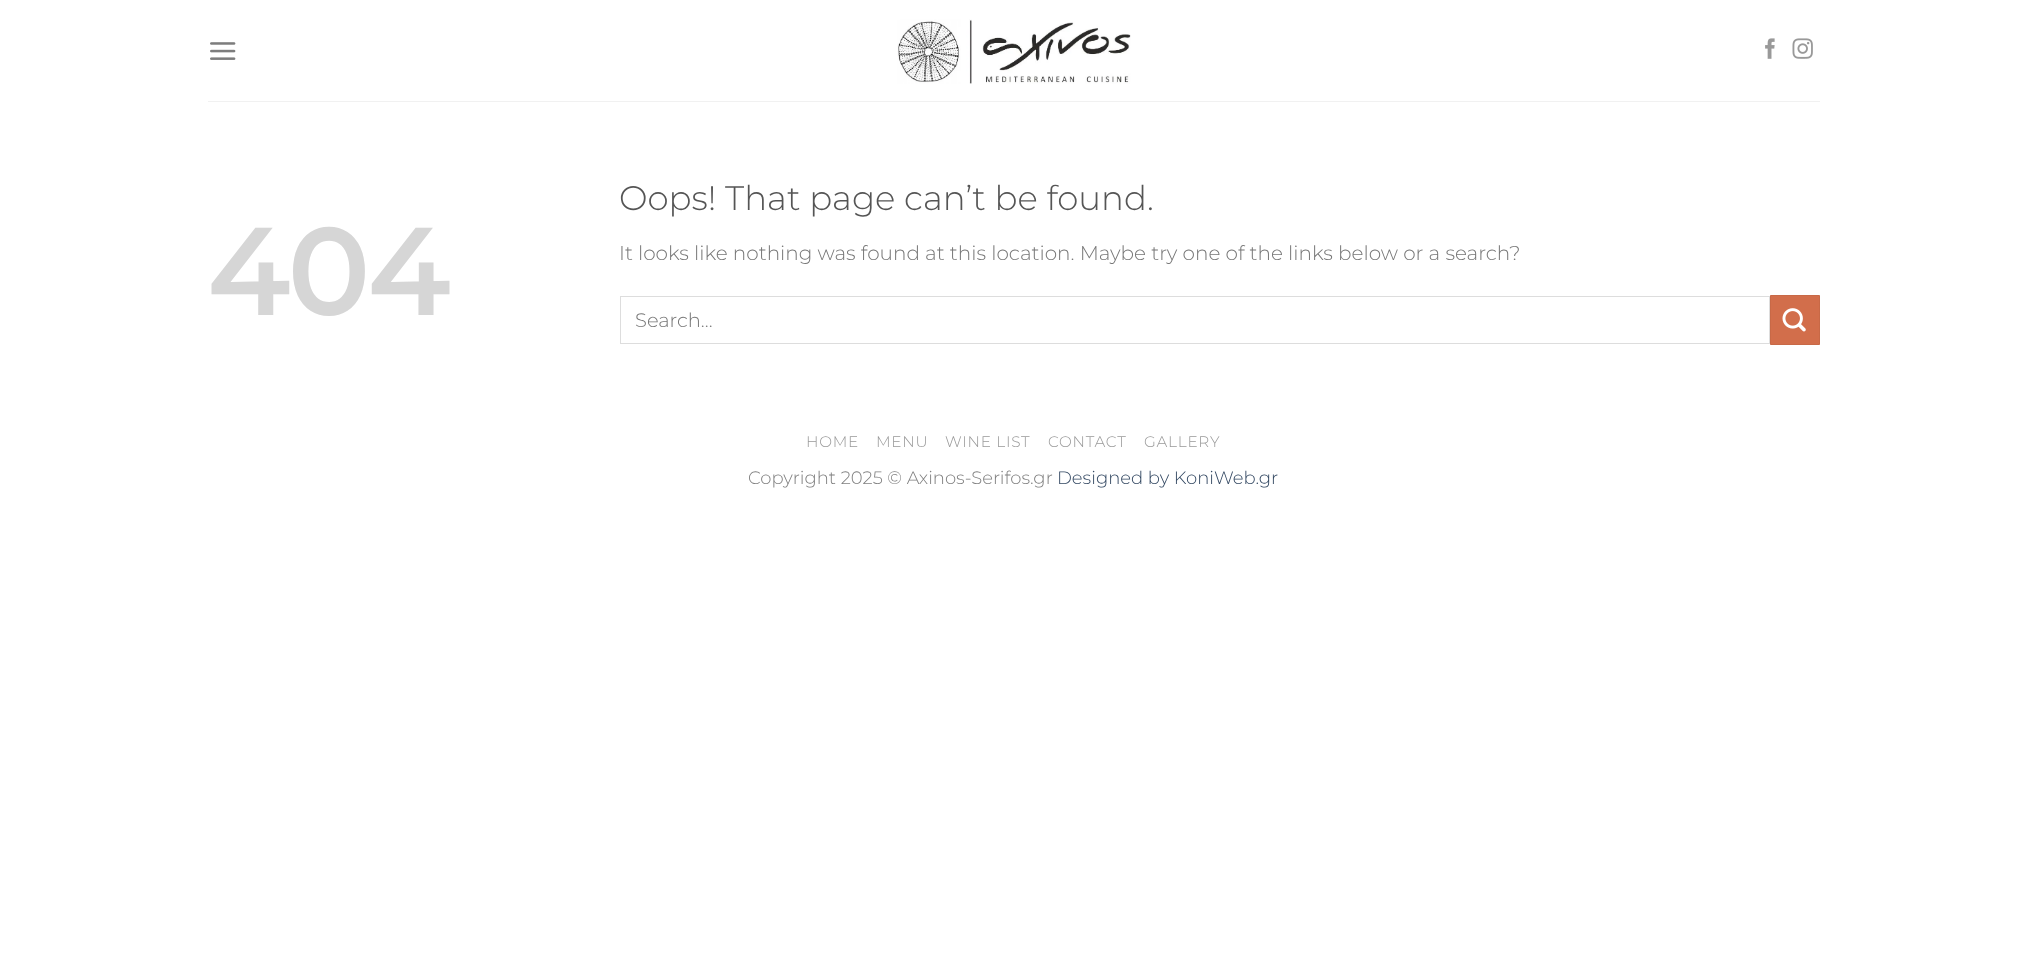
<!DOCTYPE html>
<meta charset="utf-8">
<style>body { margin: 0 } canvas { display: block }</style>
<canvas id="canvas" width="2026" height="960"></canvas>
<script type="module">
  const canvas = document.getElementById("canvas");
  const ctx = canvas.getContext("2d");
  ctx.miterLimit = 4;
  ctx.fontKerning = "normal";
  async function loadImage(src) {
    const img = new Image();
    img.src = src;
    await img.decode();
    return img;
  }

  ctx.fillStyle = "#ffffff";
  ctx.fillRect(0, 0, 2026, 960);
  ctx.drawImage(await loadImage("img1.png"), 210, 42, 26, 18);
  ctx.drawImage(await loadImage("img2.png"), 897, 19, 234, 65);
  ctx.drawImage(await loadImage("img3.png"), 1765, 38, 10, 21);
  ctx.drawImage(await loadImage("img4.png"), 1792, 38, 21, 21);
  ctx.fillStyle = "#f1f1f1";
  ctx.fillRect(208, 101, 1612, 1);
  ctx.font = "bold 120px Montserrat";
  ctx.fillStyle = "#d6d6d6";
  ctx.fillText("404", 207, 315);
  ctx.font = "300 34px Montserrat";
  ctx.fillStyle = "#555555";
  ctx.fillText("Oops! That page can’t be found.", 619, 210);
  ctx.font = "300 20px Montserrat";
  ctx.fillStyle = "#777777";
  ctx.fillText("It looks like nothing was found at this location. Maybe try one of the links below or a search?", 619, 260);
  ctx.strokeStyle = "#dddddd";
  ctx.strokeRect(620.5, 296.5, 1149, 47);
  ctx.font = "300 19.5px Montserrat";
  ctx.fillText("Search…", 635, 327);
  ctx.fillStyle = "#d26e4b";
  ctx.beginPath();
  ctx.rect(1770.5, 295.5, 49, 49);
  ctx.fill();
  ctx.strokeStyle = "#c86947";
  ctx.stroke();
  ctx.drawImage(await loadImage("img5.png"), 1782, 308, 24, 24);
  ctx.letterSpacing = "0.75px";
  ctx.font = "300 15.25px Montserrat";
  ctx.fillStyle = "#999999";
  ctx.fillText("HOME", 806, 447);
  ctx.fillText("MENU", 876, 447);
  ctx.fillText("WINE LIST", 945, 447);
  ctx.fillText("CONTACT", 1048, 447);
  ctx.fillText("GALLERY", 1144, 447);
  ctx.letterSpacing = "0px";
  ctx.font = "300 18px Montserrat";
  ctx.fillStyle = "#808080";
  ctx.fillText("Copyright 2025 © Axinos-Serifos.gr", 748, 484);
  ctx.fillStyle = "#334862";
  ctx.fillText("Designed by KoniWeb.gr", 1057, 484);
</script>
